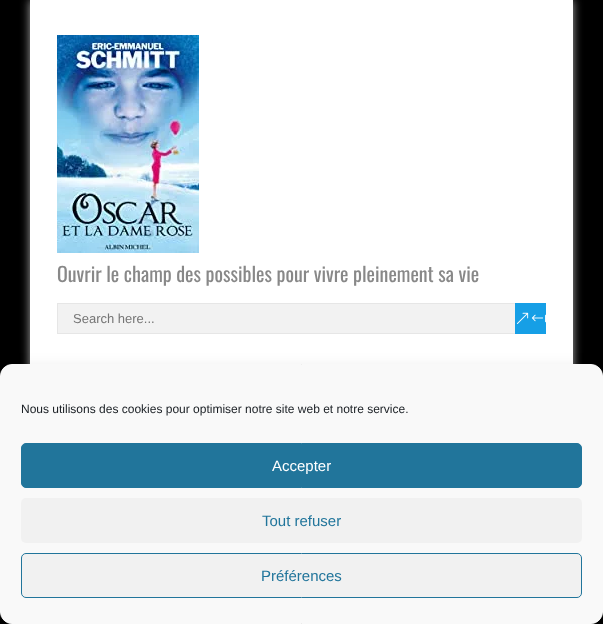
<!DOCTYPE html>
<meta charset="utf-8">
<style>body { margin: 0 } canvas { display: block }</style>
<canvas id="canvas" width="603" height="624"></canvas>
<script type="module">
  const canvas = document.getElementById("canvas");
  const ctx = canvas.getContext("2d");
  ctx.miterLimit = 4;
  ctx.fontKerning = "normal";
  async function loadImage(src) {
    const img = new Image();
    img.src = src;
    await img.decode();
    return img;
  }

  ctx.fillStyle = "#000000";
  ctx.fillRect(0, 0, 603, 624);
  ctx.fillStyle = "#aaaaaa";
  ctx.filter = "blur(5px)";
  ctx.beginPath();
  ctx.rect(30, 0, 543, 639);
  ctx.fill();
  ctx.filter = "none";
  ctx.fillStyle = "#ffffff";
  ctx.fillRect(30, 0, 543, 364);
  ctx.drawImage(await loadImage("img1.png"), 57, 35, 142, 218);
  ctx.font = "20px Oswald";
  ctx.fillStyle = "#888888";
  ctx.fillText("Ouvrir le champ des possibles pour vivre pleinement sa vie", 57, 282);
  ctx.fillStyle = "#f2f2f2";
  ctx.fillRect(58, 304, 457, 29);
  ctx.strokeStyle = "#e6e6e6";
  ctx.strokeRect(57.5, 303.5, 485, 30);
  ctx.font = "13px Liberation Sans";
  ctx.fillStyle = "#757575";
  ctx.fillText("Search here...", 73, 323);
  ctx.fillStyle = "#169fe6";
  ctx.fillRect(515, 303, 31, 31);
  ctx.drawImage(await loadImage("img2.png"), 516, 312, 30, 12);
  ctx.fillStyle = "rgba(0, 0, 0, 0.19)";
  ctx.filter = "blur(10px)";
  ctx.beginPath();
  ctx.roundRect(0, 374, 603, 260, 12);
  ctx.fill();
  ctx.filter = "none";
  ctx.fillStyle = "#f9f9f9";
  ctx.beginPath();
  ctx.roundRect(0.5, 364.5, 602, 259, 11.5);
  ctx.fill();
  ctx.strokeStyle = "#f9f9f9";
  ctx.stroke();
  ctx.font = "12px Liberation Sans";
  ctx.fillStyle = "#191e23";
  ctx.fillText("Nous utilisons des cookies pour optimiser notre site web et notre service.", 21, 413);
  ctx.fillStyle = "#21759b";
  ctx.beginPath();
  ctx.roundRect(21.5, 443.5, 560, 44, 4.5);
  ctx.fill();
  ctx.strokeStyle = "#21759b";
  ctx.stroke();
  ctx.font = "15px Liberation Sans";
  ctx.fillStyle = "#ffffff";
  ctx.fillText("Accepter", 272, 471);
  ctx.fillStyle = "#f1f1f1";
  ctx.beginPath();
  ctx.roundRect(21, 498, 561, 45, 5);
  ctx.fill();
  ctx.fillStyle = "#21759b";
  ctx.fillText("Tout refuser", 262, 526);
  ctx.fillStyle = "#f1f1f1";
  ctx.beginPath();
  ctx.roundRect(21.5, 553.5, 560, 44, 4.5);
  ctx.fill();
  ctx.stroke();
  ctx.fillStyle = "#21759b";
  ctx.fillText("Préférences", 261, 581);
</script>
